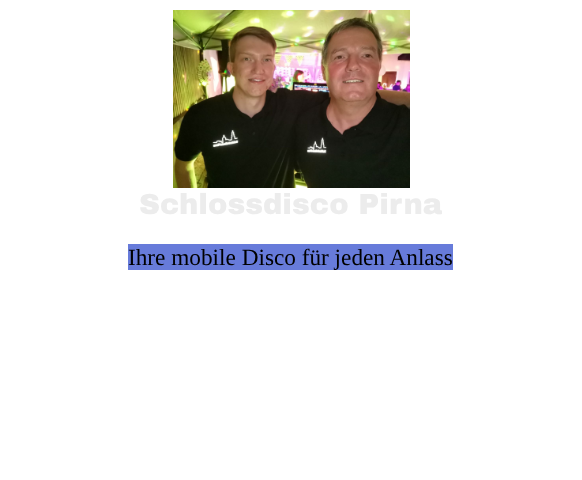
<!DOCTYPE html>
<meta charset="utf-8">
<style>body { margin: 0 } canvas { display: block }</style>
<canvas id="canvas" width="582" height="480"></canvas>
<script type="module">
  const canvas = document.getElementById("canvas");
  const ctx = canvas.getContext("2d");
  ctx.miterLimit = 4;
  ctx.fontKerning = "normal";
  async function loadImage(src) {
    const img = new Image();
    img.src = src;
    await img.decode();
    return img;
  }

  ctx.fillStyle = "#ffffff";
  ctx.fillRect(0, 0, 582, 480);
  ctx.drawImage(await loadImage("img1.png"), 173, 10, 237, 178);
  ctx.font = "29.1px Archivo Black";
  ctx.fillStyle = "#ececec";
  ctx.fillText("Schlossdisco Pirna", 139, 214);
  ctx.fillStyle = "#677bda";
  ctx.fillRect(128, 244, 325, 26);
  ctx.font = "23.25px Liberation Serif";
  ctx.fillStyle = "#000000";
  ctx.fillText("Ihre mobile Disco für jeden Anlass", 128, 265);
</script>
